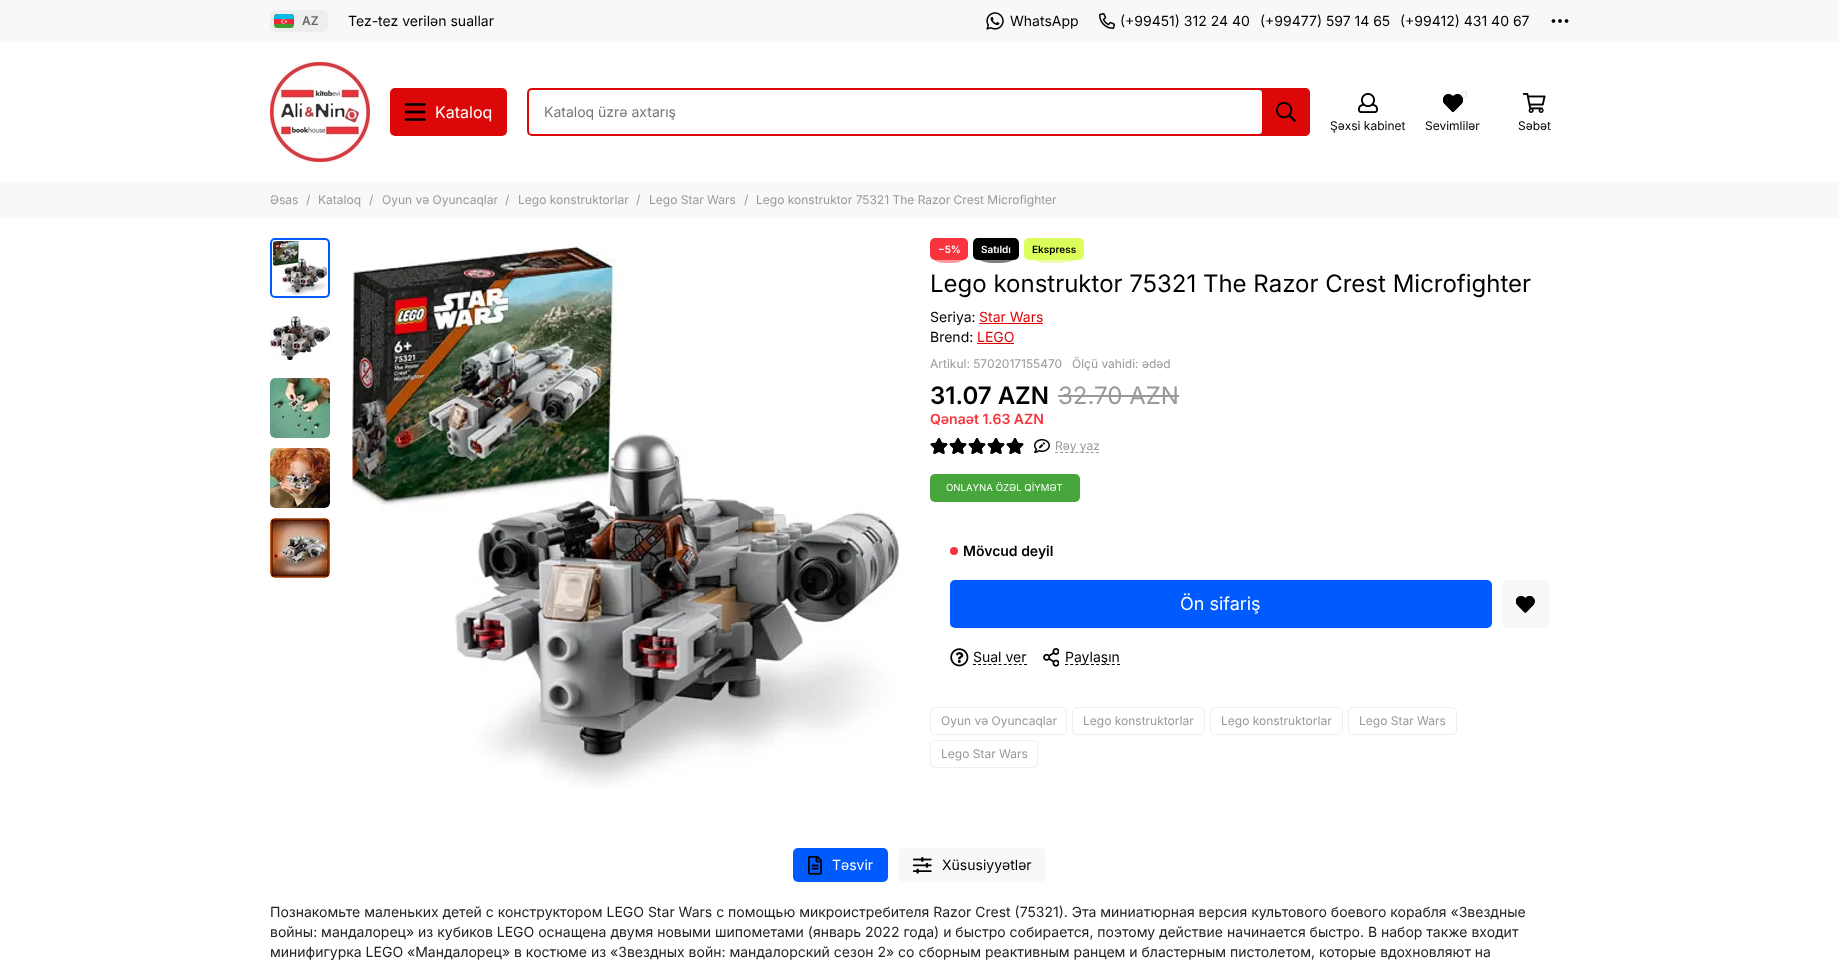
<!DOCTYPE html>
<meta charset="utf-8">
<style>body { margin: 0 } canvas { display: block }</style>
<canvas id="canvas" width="1839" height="967"></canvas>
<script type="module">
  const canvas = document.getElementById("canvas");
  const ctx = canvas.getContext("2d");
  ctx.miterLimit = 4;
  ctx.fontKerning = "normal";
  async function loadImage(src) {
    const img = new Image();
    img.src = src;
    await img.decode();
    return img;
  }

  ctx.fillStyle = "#ffffff";
  ctx.fillRect(0, 0, 1839, 967);
  ctx.fillStyle = "#f7f8fa";
  ctx.fillRect(0, 0, 1839, 42);
  ctx.fillStyle = "#eeeeee";
  ctx.beginPath();
  ctx.roundRect(270, 10, 58, 22, 5);
  ctx.fill();
  ctx.drawImage(await loadImage("img1.png"), 274, 14, 20, 14);
  ctx.font = "600 12px Inter";
  ctx.fillStyle = "#666666";
  ctx.fillText("AZ", 302, 25);
  ctx.font = "14px Inter";
  ctx.fillStyle = "#000000";
  ctx.fillText("Tez-tez verilən suallar", 348, 26);
  ctx.drawImage(await loadImage("img2.png"), 986, 12, 18, 18);
  ctx.fillText("WhatsApp", 1010, 26);
  ctx.drawImage(await loadImage("img3.png"), 1099, 13, 16, 16);
  ctx.fillText("(+99451) 312 24 40", 1120, 26);
  ctx.fillText("(+99477) 597 14 65", 1260, 26);
  ctx.fillText("(+99412) 431 40 67", 1400, 26);
  ctx.drawImage(await loadImage("img4.png"), 1551, 19, 18, 4);
  ctx.drawImage(await loadImage("img5.png"), 270, 62, 100, 100);
  ctx.fillStyle = "#dc0708";
  ctx.beginPath();
  ctx.roundRect(390, 88, 117, 48, 5);
  ctx.fill();
  ctx.drawImage(await loadImage("img6.png"), 405, 103, 21, 18);
  ctx.font = "16px Inter";
  ctx.fillStyle = "#ffffff";
  ctx.fillText("Kataloq", 435, 118);
  ctx.fillStyle = "#dc0708";
  ctx.beginPath();
  ctx.roundRect(527, 88, 783, 48, 5);
  ctx.fill();
  ctx.fillStyle = "#ffffff";
  ctx.beginPath();
  ctx.roundRect(529, 90, 733, 44, 3);
  ctx.fill();
  ctx.font = "14px Inter";
  ctx.fillStyle = "#757575";
  ctx.fillText("Kataloq üzrə axtarış", 544, 117);
  ctx.fillStyle = "#dc0708";
  ctx.beginPath();
  ctx.roundRect(1262, 88, 48, 48, [0, 5, 5, 0]);
  ctx.fill();
  ctx.drawImage(await loadImage("img7.png"), 1276, 102, 20, 20);
  ctx.drawImage(await loadImage("img8.png"), 1358, 93, 20, 20);
  ctx.font = "12px Inter";
  ctx.fillStyle = "#000000";
  ctx.fillText("Şəxsi kabinet", 1330, 130);
  ctx.drawImage(await loadImage("img9.png"), 1443, 94, 20, 18);
  ctx.font = "600 10px Inter";
  ctx.fillStyle = "#e8e8e8";
  ctx.fillText("0", 1461, 98);
  ctx.font = "12px Inter";
  ctx.fillStyle = "#000000";
  ctx.fillText("Sevimlilər", 1425, 130);
  ctx.drawImage(await loadImage("img10.png"), 1523, 93, 23, 20);
  ctx.fillText("Səbət", 1518, 130);
  ctx.fillStyle = "#f7f8fa";
  ctx.fillRect(0, 182, 1839, 36);
  ctx.fillStyle = "#999999";
  ctx.fillText("Əsas", 270, 204);
  ctx.fillText("/", 306, 204);
  ctx.fillText("Kataloq", 318, 204);
  ctx.fillText("/", 369, 204);
  ctx.fillText("Oyun və Oyuncaqlar", 382, 204);
  ctx.fillText("/", 505, 204);
  ctx.fillText("Lego konstruktorlar", 518, 204);
  ctx.fillText("/", 636, 204);
  ctx.fillText("Lego Star Wars", 649, 204);
  ctx.fillText("/", 744, 204);
  ctx.fillText("Lego konstruktor 75321 The Razor Crest Microfighter", 756, 204);
  ctx.drawImage(await loadImage("img11.png"), 270, 238, 60, 60);
  ctx.beginPath();
  ctx.roundRect(271.5, 239.5, 57, 57, 4.5);
  ctx.strokeStyle = "#ffffff";
  ctx.lineWidth = 3;
  ctx.stroke();
  ctx.beginPath();
  ctx.roundRect(271, 239, 58, 58, 4);
  ctx.strokeStyle = "#005bff";
  ctx.lineWidth = 2;
  ctx.stroke();
  ctx.drawImage(await loadImage("img12.png"), 270, 316, 60, 44);
  ctx.drawImage(await loadImage("img13.png"), 270, 378, 60, 60);
  ctx.drawImage(await loadImage("img14.png"), 270, 448, 60, 60);
  ctx.drawImage(await loadImage("img15.png"), 270, 518, 60, 60);
  ctx.drawImage(await loadImage("img16.png"), 350, 245, 550, 543);
  ctx.fillStyle = "#f8353e";
  ctx.beginPath();
  ctx.roundRect(930, 238, 38, 22, 5);
  ctx.fill();
  ctx.fillStyle = "rgba(248, 53, 62, 0.5)";
  ctx.beginPath();
  ctx.moveTo(945, 243);
  ctx.lineTo(952, 243);
  ctx.bezierCurveTo(959.5, 243, 966, 246.5, 966, 251);
  ctx.lineTo(966, 255);
  ctx.bezierCurveTo(966, 259.5, 959.5, 263, 952, 263);
  ctx.lineTo(945, 263);
  ctx.bezierCurveTo(937.5, 263, 931, 259.5, 931, 255);
  ctx.lineTo(931, 251);
  ctx.bezierCurveTo(931, 246.5, 937.5, 243, 945, 243);
  ctx.closePath();
  ctx.fill();
  ctx.font = "600 10px Inter";
  ctx.fillStyle = "#ffffff";
  ctx.fillText("−5%", 938, 253);
  ctx.fillStyle = "#000000";
  ctx.beginPath();
  ctx.roundRect(973, 238, 46, 22, 5);
  ctx.fill();
  ctx.fillStyle = "rgba(0, 0, 0, 0.5)";
  ctx.beginPath();
  ctx.moveTo(992, 243);
  ctx.lineTo(1001, 243);
  ctx.bezierCurveTo(1010, 243, 1017, 247, 1017, 251);
  ctx.lineTo(1017, 255);
  ctx.bezierCurveTo(1017, 259, 1010, 263, 1001, 263);
  ctx.lineTo(992, 263);
  ctx.bezierCurveTo(983, 263, 976, 259, 976, 255);
  ctx.lineTo(976, 251);
  ctx.bezierCurveTo(976, 247, 983, 243, 992, 243);
  ctx.closePath();
  ctx.fill();
  ctx.fillStyle = "#ffffff";
  ctx.fillText("Satıldı", 981, 253);
  ctx.fillStyle = "#dcfe5b";
  ctx.beginPath();
  ctx.roundRect(1024, 238, 60, 22, 5);
  ctx.fill();
  ctx.fillStyle = "rgba(220, 254, 91, 0.5)";
  ctx.beginPath();
  ctx.moveTo(1049, 243);
  ctx.lineTo(1059, 243);
  ctx.bezierCurveTo(1071, 243, 1081, 247, 1081, 251);
  ctx.lineTo(1081, 255);
  ctx.bezierCurveTo(1081, 259, 1071, 263, 1059, 263);
  ctx.lineTo(1049, 263);
  ctx.bezierCurveTo(1037, 263, 1027, 259, 1027, 255);
  ctx.lineTo(1027, 251);
  ctx.bezierCurveTo(1027, 247, 1037, 243, 1049, 243);
  ctx.closePath();
  ctx.fill();
  ctx.fillStyle = "#000000";
  ctx.fillText("Ekspress", 1032, 253);
  ctx.font = "24px Inter";
  ctx.fillText("Lego konstruktor 75321 The Razor Crest Microfighter", 930, 292);
  ctx.font = "14px Inter";
  ctx.fillText("Seriya:", 930, 322);
  ctx.fillStyle = "#dc0708";
  ctx.fillText("Star Wars", 979, 322);
  ctx.fillRect(979, 323, 64, 1);
  ctx.fillStyle = "#000000";
  ctx.fillText("Brend:", 930, 342);
  ctx.fillStyle = "#dc0708";
  ctx.fillText("LEGO", 977, 342);
  ctx.fillRect(977, 343, 37, 1);
  ctx.font = "12px Inter";
  ctx.fillStyle = "#999999";
  ctx.fillText("Artikul: 5702017155470", 930, 368);
  ctx.fillText("Ölçü vahidi: ədəd", 1072, 368);
  ctx.font = "600 24px Inter";
  ctx.fillStyle = "#000000";
  ctx.fillText("31.07 AZN", 930, 404);
  ctx.font = "24px Inter";
  ctx.fillStyle = "#999999";
  ctx.fillText("32.70 AZN", 1058, 404);
  ctx.fillRect(1058, 395, 121, 2);
  ctx.font = "600 14px Inter";
  ctx.fillStyle = "#f8353e";
  ctx.fillText("Qənaət 1.63 AZN", 930, 424);
  ctx.drawImage(await loadImage("img17.png"), 930, 438, 18, 16);
  ctx.drawImage(await loadImage("img17.png"), 949, 438, 18, 16);
  ctx.drawImage(await loadImage("img17.png"), 968, 438, 18, 16);
  ctx.drawImage(await loadImage("img17.png"), 987, 438, 18, 16);
  ctx.drawImage(await loadImage("img17.png"), 1006, 438, 18, 16);
  ctx.drawImage(await loadImage("img18.png"), 1034, 439, 16, 14);
  ctx.beginPath();
  ctx.moveTo(1055, 452.5);
  ctx.lineTo(1099, 452.5);
  ctx.strokeStyle = "#999999";
  ctx.lineWidth = 1;
  ctx.setLineDash([3, 2.12]);
  ctx.stroke();
  ctx.font = "12px Inter";
  ctx.fillStyle = "#999999";
  ctx.fillText("Rəy yaz", 1055, 450);
  ctx.fillStyle = "#46a53b";
  ctx.beginPath();
  ctx.roundRect(930, 474, 150, 28, 5);
  ctx.fill();
  ctx.font = "9.6px Inter";
  ctx.fillStyle = "#ffffff";
  ctx.fillText("ONLAYNA ÖZƏL QİYMƏT", 946, 491);
  ctx.fillStyle = "#f8353e";
  ctx.beginPath();
  ctx.arc(954, 551, 4, 0, Math.PI * 2);
  ctx.fill();
  ctx.font = "600 14px Inter";
  ctx.fillStyle = "#000000";
  ctx.fillText("Mövcud deyil", 963, 556);
  ctx.fillStyle = "#005bff";
  ctx.beginPath();
  ctx.roundRect(950, 580, 542, 48, 5);
  ctx.fill();
  ctx.font = "18px Inter";
  ctx.fillStyle = "#ffffff";
  ctx.fillText("Ön sifariş", 1180, 610);
  ctx.fillStyle = "#f7f8fa";
  ctx.beginPath();
  ctx.roundRect(1502, 580, 48, 48, 5);
  ctx.fill();
  ctx.drawImage(await loadImage("img19.png"), 1516, 596, 19, 17);
  ctx.drawImage(await loadImage("img20.png"), 950, 648, 19, 19);
  ctx.beginPath();
  ctx.moveTo(973, 664.5);
  ctx.lineTo(1027, 664.5);
  ctx.strokeStyle = "#000000";
  ctx.setLineDash([3, 2.1]);
  ctx.stroke();
  ctx.font = "14px Inter";
  ctx.fillStyle = "#000000";
  ctx.fillText("Sual ver", 973, 662);
  ctx.drawImage(await loadImage("img21.png"), 1043, 648, 16, 19);
  ctx.beginPath();
  ctx.moveTo(1065, 664.5);
  ctx.lineTo(1120, 664.5);
  ctx.setLineDash([3, 2.2]);
  ctx.stroke();
  ctx.fillText("Paylaşın", 1065, 662);
  ctx.beginPath();
  ctx.roundRect(930.5, 707.5, 136, 27, 4.5);
  ctx.strokeStyle = "#eeeeee";
  ctx.setLineDash([]);
  ctx.stroke();
  ctx.font = "12px Inter";
  ctx.fillStyle = "#999999";
  ctx.fillText("Oyun və Oyuncaqlar", 941, 725);
  ctx.beginPath();
  ctx.roundRect(1072.5, 707.5, 132, 27, 4.5);
  ctx.stroke();
  ctx.fillText("Lego konstruktorlar", 1083, 725);
  ctx.beginPath();
  ctx.roundRect(1210.5, 707.5, 132, 27, 4.5);
  ctx.stroke();
  ctx.fillText("Lego konstruktorlar", 1221, 725);
  ctx.beginPath();
  ctx.roundRect(1348.5, 707.5, 108, 27, 4.5);
  ctx.stroke();
  ctx.fillText("Lego Star Wars", 1359, 725);
  ctx.beginPath();
  ctx.roundRect(930.5, 740.5, 107, 27, 4.5);
  ctx.stroke();
  ctx.fillText("Lego Star Wars", 941, 758);
  ctx.fillStyle = "#005bff";
  ctx.beginPath();
  ctx.roundRect(793, 848, 95, 34, 5);
  ctx.fill();
  ctx.drawImage(await loadImage("img22.png"), 808, 856, 14, 19);
  ctx.font = "14px Inter";
  ctx.fillStyle = "#ffffff";
  ctx.fillText("Təsvir", 832, 870);
  ctx.fillStyle = "#f7f8fa";
  ctx.beginPath();
  ctx.roundRect(898, 848, 148, 34, 5);
  ctx.fill();
  ctx.drawImage(await loadImage("img23.png"), 913, 857, 19, 17);
  ctx.fillStyle = "#000000";
  ctx.fillText("Xüsusiyyətlər", 942, 870);
  ctx.fillStyle = "#222222";
  ctx.fillText("Познакомьте маленьких детей с конструктором LEGO Star Wars с помощью микроистребителя Razor Crest (75321). Эта миниатюрная версия культового боевого корабля «Звездные", 270, 917);
  ctx.fillText("войны: мандалорец» из кубиков LEGO оснащена двумя новыми шипометами (январь 2022 года) и быстро собирается, поэтому действие начинается быстро. В набор также входит", 270, 937);
  ctx.fillText("минифигурка LEGO «Мандалорец» в костюме из «Звездных войн: мандалорский сезон 2» со сборным реактивным ранцем и бластерным пистолетом, которые вдохновляют на", 270, 957);
</script>
